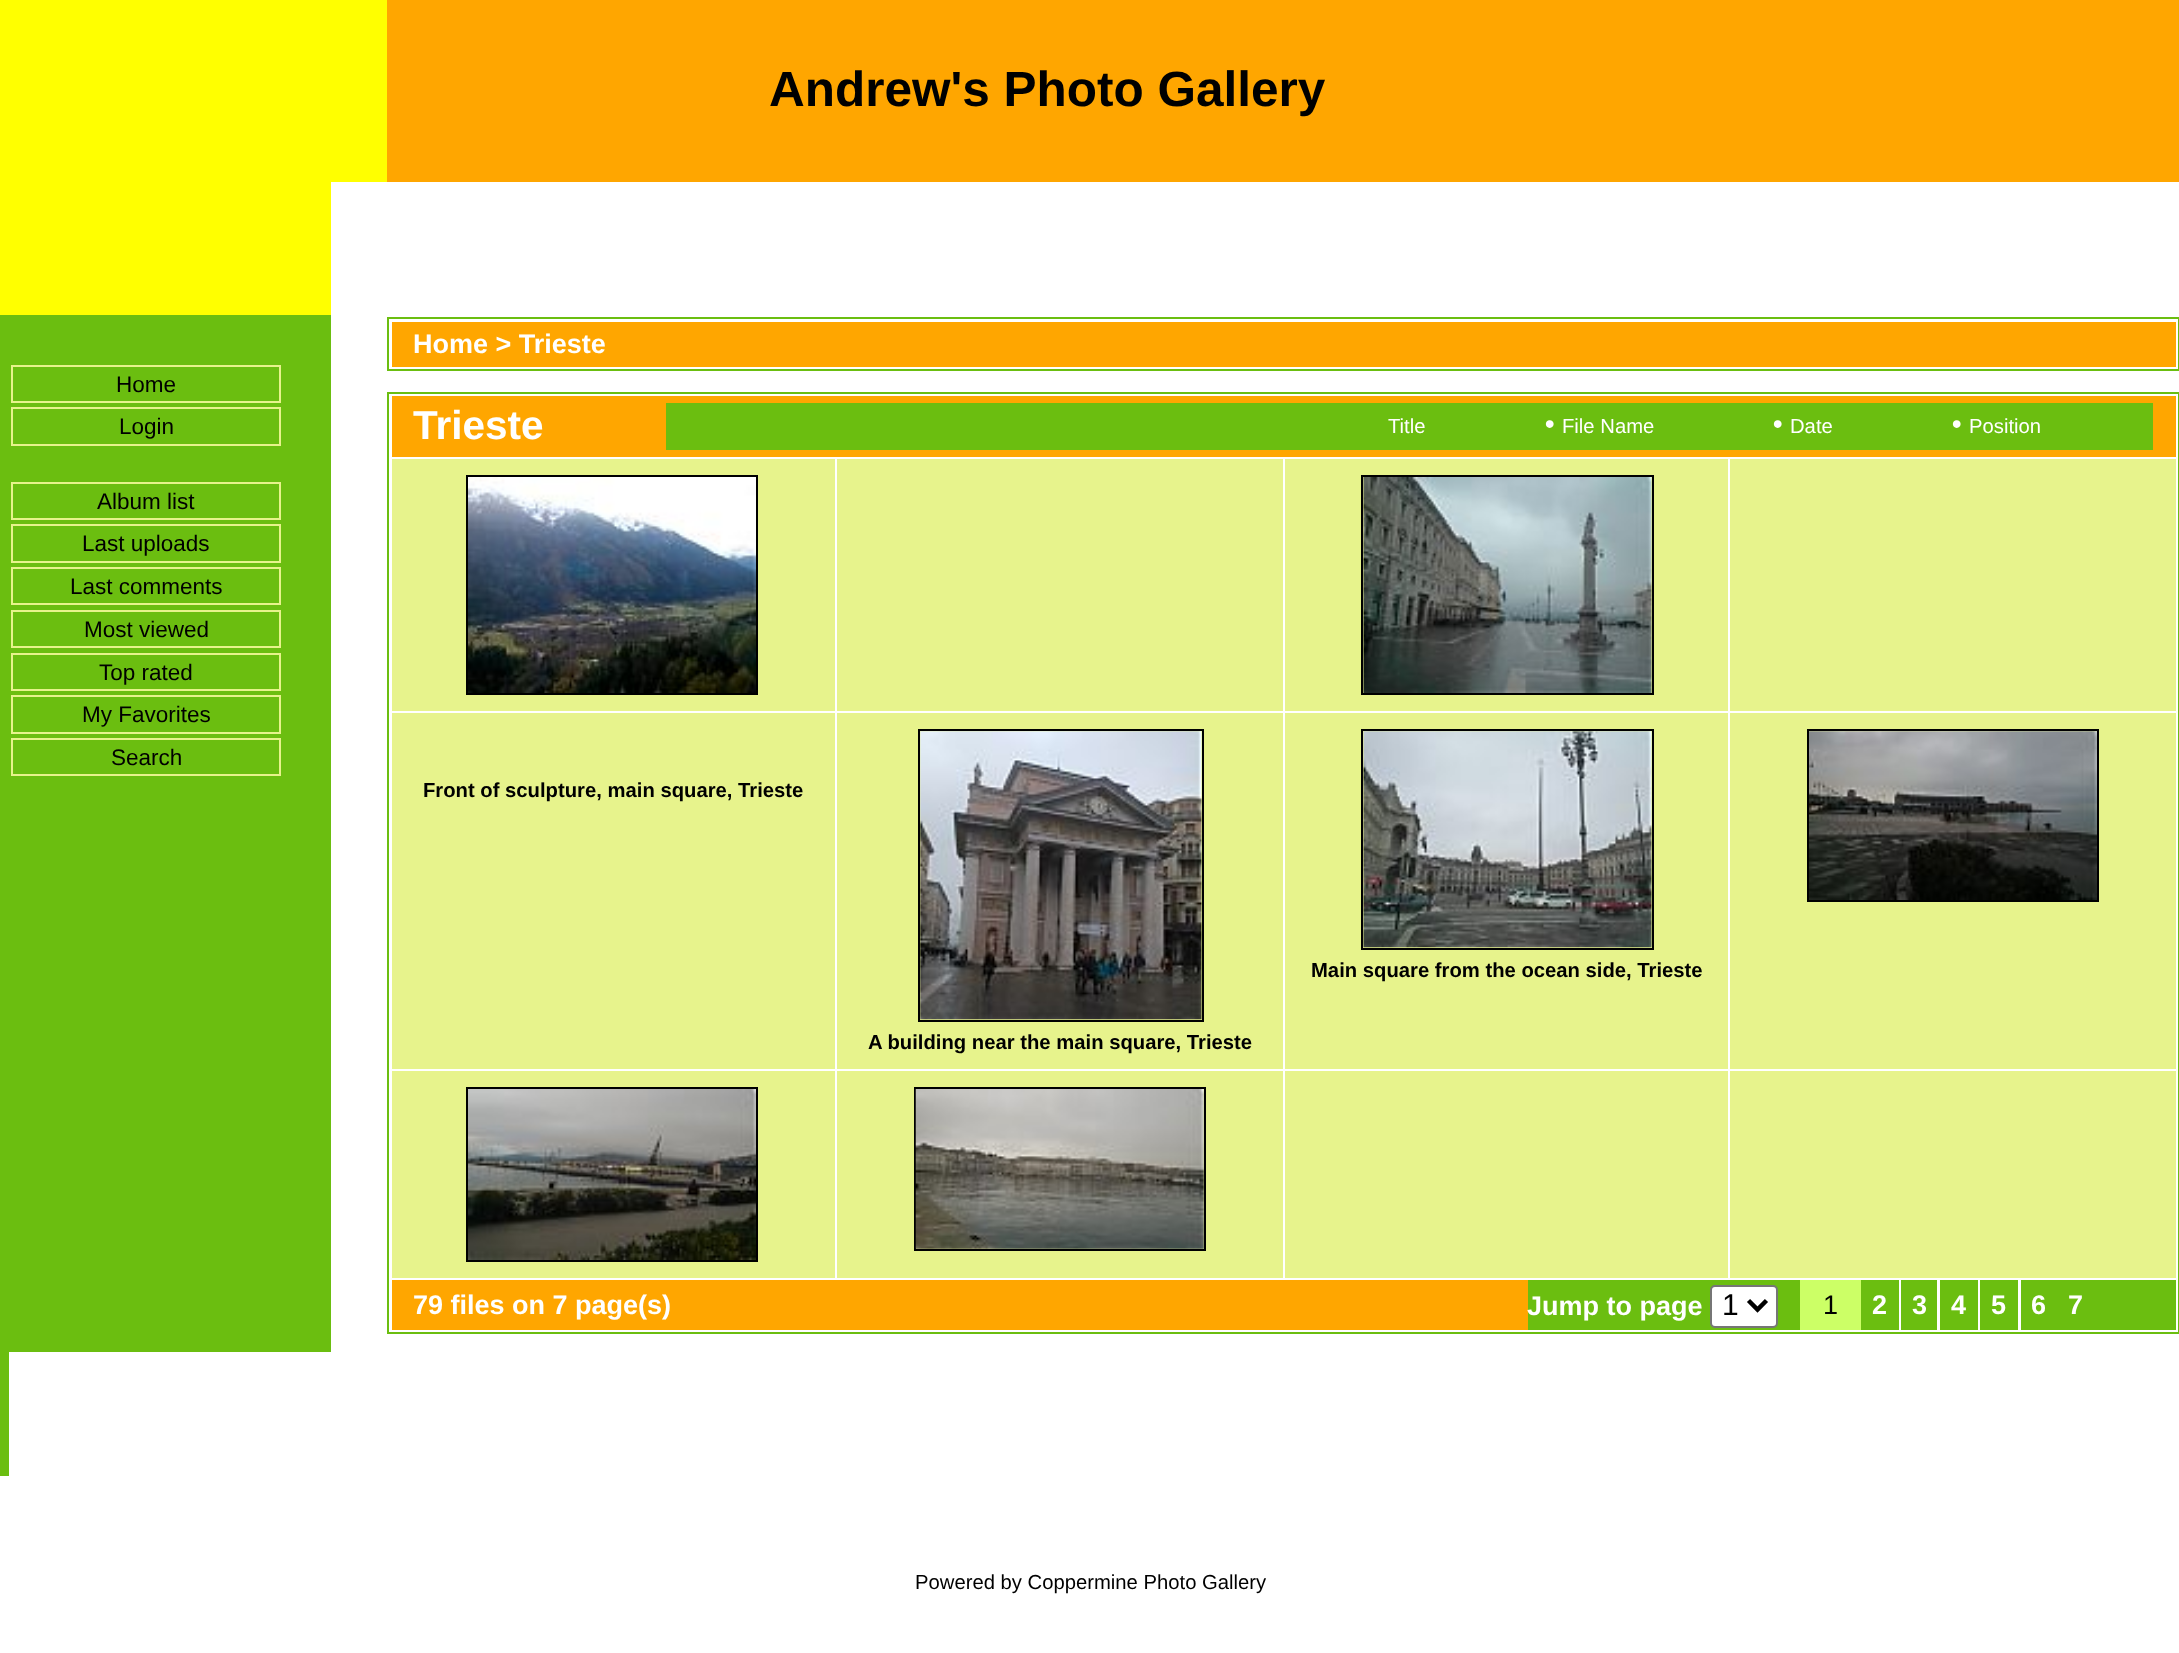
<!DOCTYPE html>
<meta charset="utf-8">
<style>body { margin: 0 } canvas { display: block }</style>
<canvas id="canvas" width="2179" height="1653"></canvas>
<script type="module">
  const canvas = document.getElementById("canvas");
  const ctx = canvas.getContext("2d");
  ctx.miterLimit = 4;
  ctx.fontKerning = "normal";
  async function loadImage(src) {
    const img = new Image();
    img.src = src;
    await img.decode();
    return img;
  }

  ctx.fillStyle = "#ffffff";
  ctx.fillRect(0, 0, 2179, 1653);
  ctx.fillStyle = "#ffff00";
  ctx.fillRect(0, 0, 387, 182);
  ctx.fillStyle = "#ffa600";
  ctx.fillRect(387, 0, 1792, 182);
  ctx.font = "bold 49.5px Liberation Sans";
  ctx.fillStyle = "#000000";
  ctx.fillText("Andrew's Photo Gallery", 769, 106);
  ctx.fillStyle = "#ffff00";
  ctx.fillRect(0, 182, 331, 133);
  ctx.fillStyle = "#6bbe10";
  ctx.fillRect(0, 315, 331, 1037);
  ctx.strokeStyle = "#e7f38c";
  ctx.lineWidth = 2;
  ctx.strokeRect(12, 366, 268, 36);
  ctx.font = "22.5px Liberation Sans";
  ctx.fillStyle = "#000000";
  ctx.fillText("Home", 116, 392);
  ctx.strokeRect(12, 408, 268, 37);
  ctx.fillText("Login", 119, 434);
  ctx.strokeRect(12, 483, 268, 36);
  ctx.fillText("Album list", 97, 509);
  ctx.strokeRect(12, 525, 268, 37);
  ctx.fillText("Last uploads", 82, 551);
  ctx.strokeRect(12, 568, 268, 36);
  ctx.fillText("Last comments", 70, 594);
  ctx.strokeRect(12, 611, 268, 36);
  ctx.fillText("Most viewed", 84, 637);
  ctx.strokeRect(12, 654, 268, 36);
  ctx.fillText("Top rated", 99, 680);
  ctx.strokeRect(12, 696, 268, 37);
  ctx.fillText("My Favorites", 82, 722);
  ctx.strokeRect(12, 739, 268, 36);
  ctx.fillText("Search", 111, 765);
  ctx.strokeStyle = "#6bbe10";
  ctx.strokeRect(388, 318, 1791, 52);
  ctx.fillStyle = "#ffa600";
  ctx.fillRect(392, 322, 1784, 45);
  ctx.font = "bold 27px Liberation Sans";
  ctx.fillStyle = "#ffffff";
  ctx.fillText("Home > Trieste", 413, 353);
  ctx.strokeRect(388, 393, 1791, 940);
  ctx.fillStyle = "#ffa600";
  ctx.fillRect(392, 396, 1784, 61);
  ctx.font = "bold 40.5px Liberation Sans";
  ctx.fillStyle = "#ffffff";
  ctx.fillText("Trieste", 413, 439);
  ctx.fillStyle = "#6bbe10";
  ctx.fillRect(666, 403, 1487, 47);
  ctx.font = "20.25px Liberation Sans";
  ctx.fillStyle = "#ffffff";
  ctx.fillText("Title", 1388, 433);
  ctx.font = "bold 27px Liberation Sans";
  ctx.fillText("•", 1545, 433);
  ctx.font = "20.25px Liberation Sans";
  ctx.fillText("File Name", 1562, 433);
  ctx.font = "bold 27px Liberation Sans";
  ctx.fillText("•", 1773, 433);
  ctx.font = "20.25px Liberation Sans";
  ctx.fillText("Date", 1790, 433);
  ctx.font = "bold 27px Liberation Sans";
  ctx.fillText("•", 1952, 433);
  ctx.font = "20.25px Liberation Sans";
  ctx.fillText("Position", 1969, 433);
  ctx.fillStyle = "#e7f38c";
  ctx.fillRect(392, 459, 443, 252);
  ctx.strokeStyle = "#000000";
  ctx.strokeRect(467, 476, 290, 218);
  ctx.drawImage(await loadImage("img1.png"), 468, 477, 288, 216);
  ctx.fillRect(837, 459, 446, 252);
  ctx.fillRect(1285, 459, 443, 252);
  ctx.strokeRect(1362, 476, 291, 218);
  ctx.drawImage(await loadImage("img2.png"), 1363, 477, 289, 216);
  ctx.fillRect(1730, 459, 446, 252);
  ctx.fillRect(392, 713, 443, 356);
  ctx.font = "bold 20.25px Liberation Sans";
  ctx.fillStyle = "#000000";
  ctx.fillText("Front of sculpture, main square, Trieste", 423, 797);
  ctx.fillStyle = "#e7f38c";
  ctx.fillRect(1730, 713, 446, 356);
  ctx.strokeRect(1808, 730, 290, 171);
  ctx.drawImage(await loadImage("img3.png"), 1809, 731, 288, 169);
  ctx.fillRect(1285, 713, 443, 356);
  ctx.strokeRect(1362, 730, 291, 219);
  ctx.drawImage(await loadImage("img4.png"), 1363, 731, 289, 217);
  ctx.fillStyle = "#000000";
  ctx.fillText("Main square from the ocean side, Trieste", 1311, 977);
  ctx.fillStyle = "#e7f38c";
  ctx.fillRect(837, 713, 446, 356);
  ctx.strokeRect(919, 730, 284, 291);
  ctx.drawImage(await loadImage("img5.png"), 920, 731, 282, 289);
  ctx.fillStyle = "#000000";
  ctx.fillText("A building near the main square, Trieste", 868, 1049);
  ctx.fillStyle = "#e7f38c";
  ctx.fillRect(392, 1071, 443, 207);
  ctx.strokeRect(467, 1088, 290, 173);
  ctx.drawImage(await loadImage("img6.png"), 468, 1089, 288, 171);
  ctx.fillRect(837, 1071, 446, 207);
  ctx.strokeRect(915, 1088, 290, 162);
  ctx.drawImage(await loadImage("img7.png"), 915, 1089, 289, 160);
  ctx.fillRect(1285, 1071, 443, 207);
  ctx.fillRect(1730, 1071, 446, 207);
  ctx.fillStyle = "#ffa600";
  ctx.fillRect(392, 1280, 1136, 50);
  ctx.font = "bold 27px Liberation Sans";
  ctx.fillStyle = "#ffffff";
  ctx.fillText("79 files on 7 page(s)", 413, 1314);
  ctx.fillStyle = "#6bbe10";
  ctx.fillRect(1528, 1280, 272, 50);
  ctx.fillStyle = "#ffffff";
  ctx.fillText("Jump to page", 1527, 1315);
  ctx.beginPath();
  ctx.roundRect(1711, 1286, 66, 41, 4);
  ctx.fill();
  ctx.strokeStyle = "#767676";
  ctx.stroke();
  ctx.beginPath();
  ctx.moveTo(1748.5, 1300.5);
  ctx.lineTo(1757.5, 1309.5);
  ctx.lineTo(1766.5, 1300.5);
  ctx.strokeStyle = "#000000";
  ctx.lineWidth = 4.5;
  ctx.stroke();
  ctx.font = "30px Liberation Sans";
  ctx.fillStyle = "#000000";
  ctx.fillText("1", 1722, 1315);
  ctx.fillStyle = "#ccff66";
  ctx.fillRect(1800, 1280, 61, 50);
  ctx.font = "27px Liberation Sans";
  ctx.fillStyle = "#000000";
  ctx.fillText("1", 1823, 1314);
  ctx.fillStyle = "#6bbe10";
  ctx.fillRect(1861, 1280, 38, 50);
  ctx.font = "bold 27px Liberation Sans";
  ctx.fillStyle = "#ffffff";
  ctx.fillText("2", 1872, 1314);
  ctx.fillStyle = "#6bbe10";
  ctx.fillRect(1901, 1280, 36, 50);
  ctx.fillStyle = "#ffffff";
  ctx.fillText("3", 1912, 1314);
  ctx.fillStyle = "#6bbe10";
  ctx.fillRect(1940, 1280, 38, 50);
  ctx.fillStyle = "#ffffff";
  ctx.fillText("4", 1951, 1314);
  ctx.fillStyle = "#6bbe10";
  ctx.fillRect(1980, 1280, 38, 50);
  ctx.fillStyle = "#ffffff";
  ctx.fillText("5", 1991, 1314);
  ctx.fillStyle = "#6bbe10";
  ctx.fillRect(2021, 1280, 155, 50);
  ctx.fillStyle = "#ffffff";
  ctx.fillText("6", 2031, 1314);
  ctx.fillText("7", 2068, 1314);
  ctx.fillStyle = "#6bbe10";
  ctx.fillRect(0, 1352, 9, 124);
  ctx.font = "20.25px Liberation Sans";
  ctx.fillStyle = "#000000";
  ctx.fillText("Powered by Coppermine Photo Gallery", 915, 1589);
</script>
